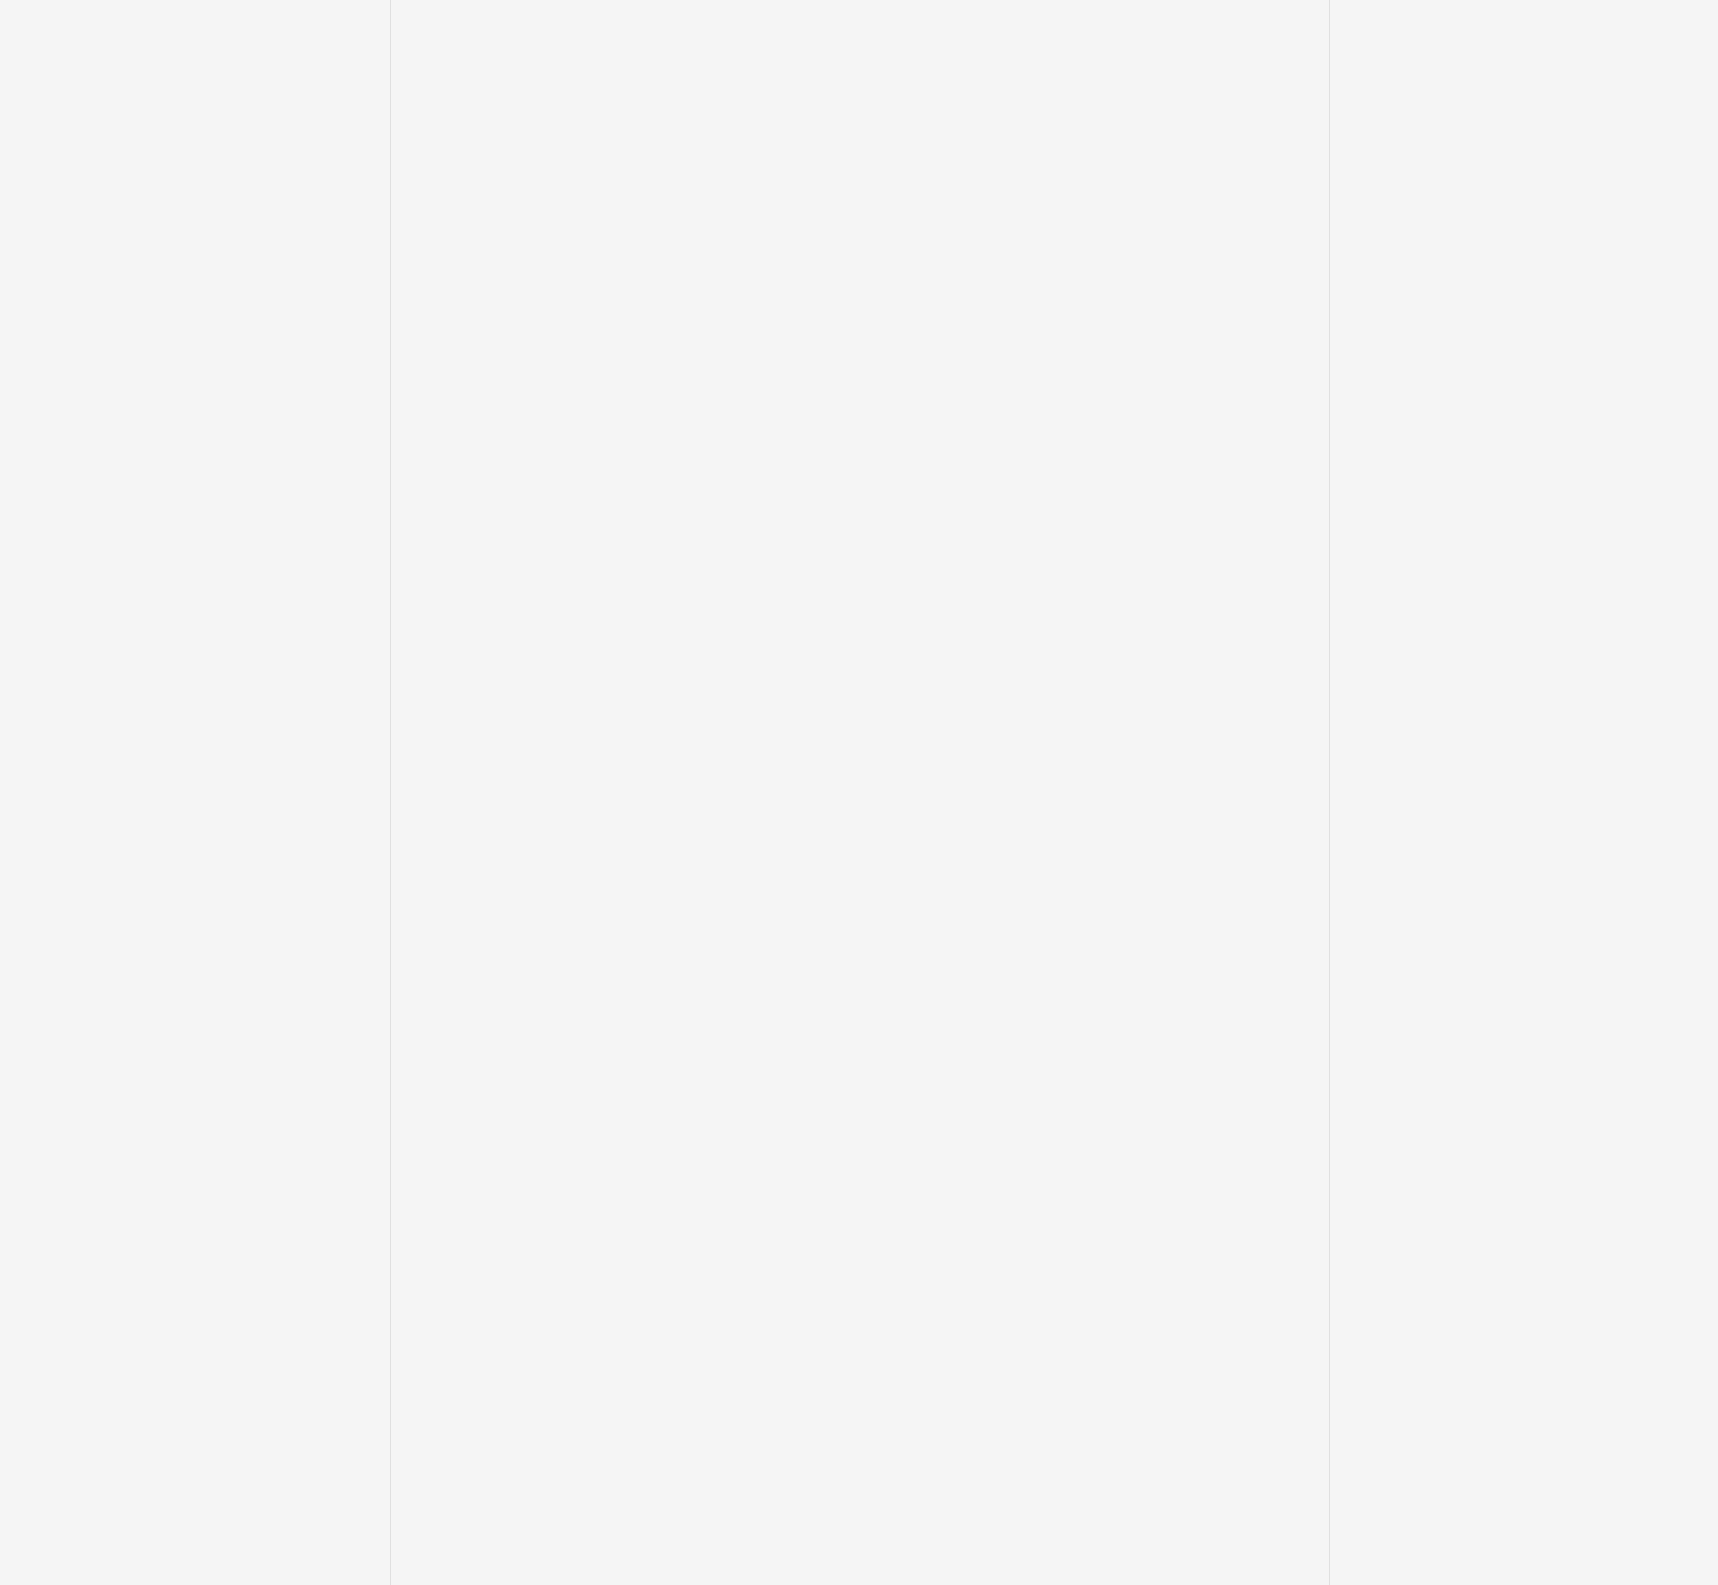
<!DOCTYPE html>
<meta charset="utf-8">
<style>body { margin: 0 } canvas { display: block }</style>
<canvas id="canvas" width="1718" height="1585"></canvas>
<script type="module">
  const canvas = document.getElementById("canvas");
  const ctx = canvas.getContext("2d");
  ctx.miterLimit = 4;
  ctx.fontKerning = "normal";

  ctx.fillStyle = "#f5f5f5";
  ctx.fillRect(0, 0, 1718, 1585);
  ctx.fillStyle = "#e0e0e0";
  ctx.fillRect(1329, 0, 1, 1585);
  ctx.fillRect(390, 0, 1, 1585);
</script>
